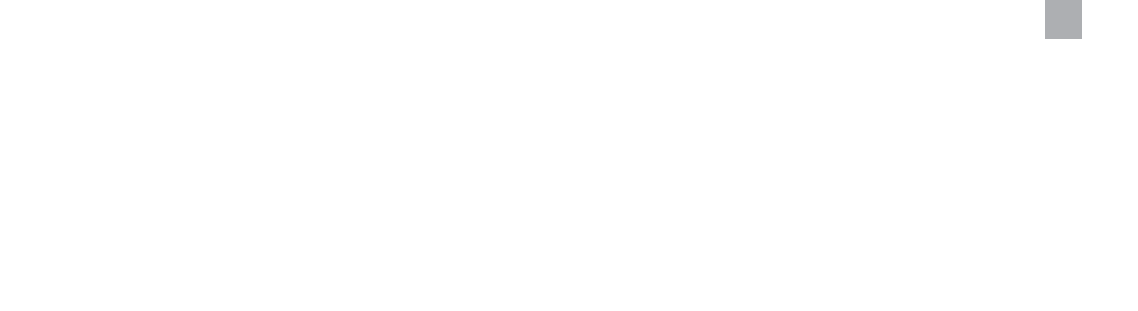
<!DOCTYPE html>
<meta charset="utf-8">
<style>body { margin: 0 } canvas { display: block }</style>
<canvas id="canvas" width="1138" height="311"></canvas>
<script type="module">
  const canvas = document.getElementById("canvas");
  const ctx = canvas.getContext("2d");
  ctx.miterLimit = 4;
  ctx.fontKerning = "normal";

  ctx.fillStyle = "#ffffff";
  ctx.fillRect(0, 0, 1138, 311);
  ctx.fillStyle = "#adafb2";
  ctx.fillRect(1045, 0, 37, 39);
</script>
